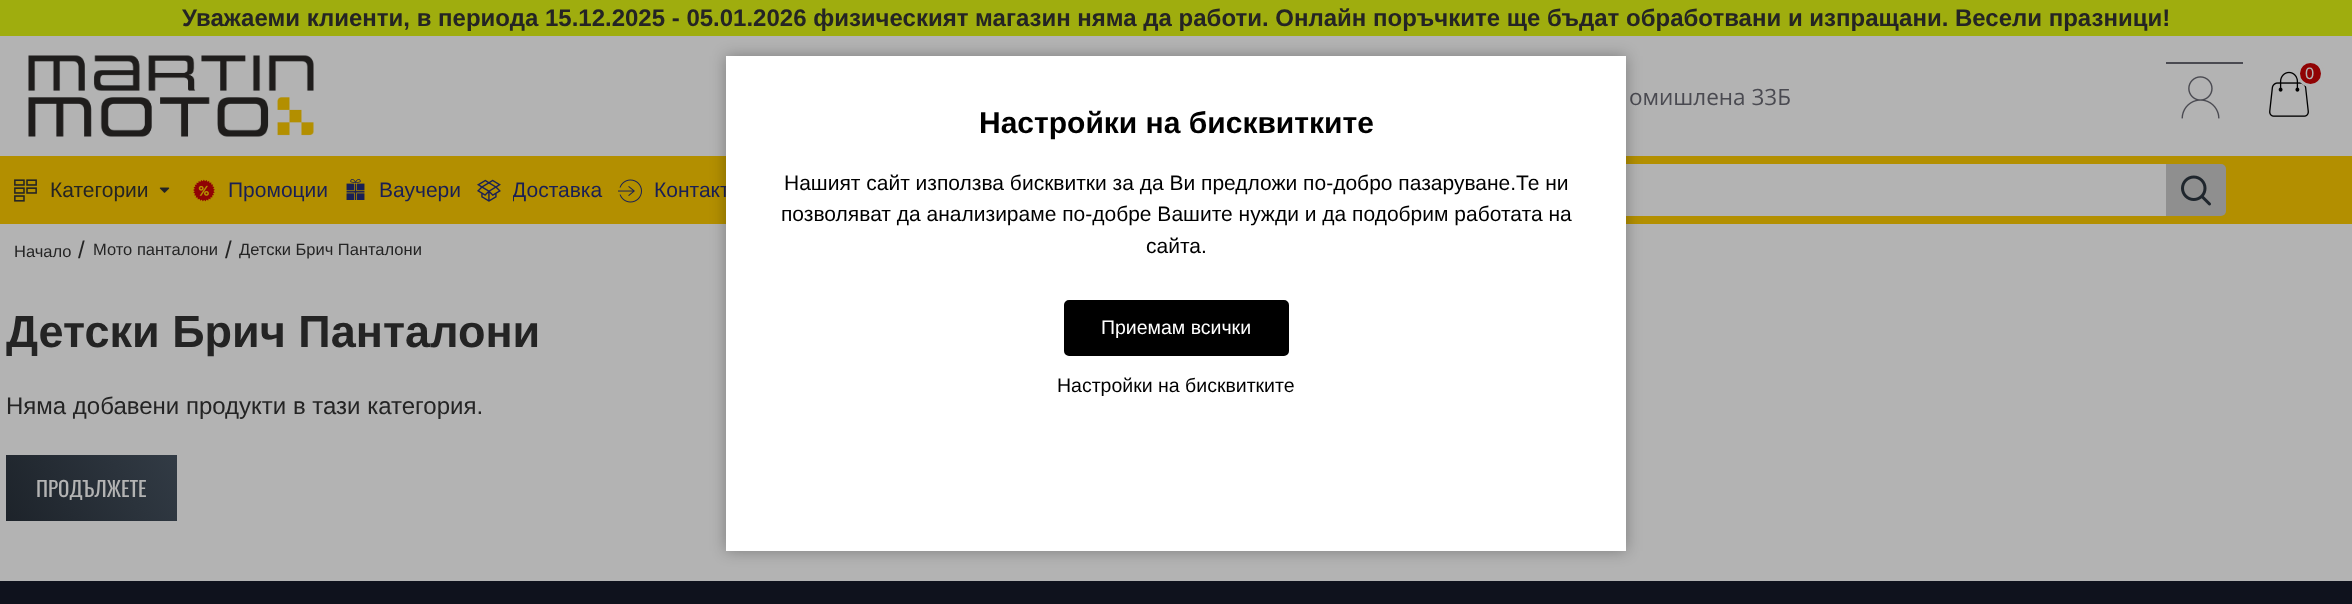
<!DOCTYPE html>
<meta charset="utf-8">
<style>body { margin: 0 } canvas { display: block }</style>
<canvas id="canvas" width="2352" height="604"></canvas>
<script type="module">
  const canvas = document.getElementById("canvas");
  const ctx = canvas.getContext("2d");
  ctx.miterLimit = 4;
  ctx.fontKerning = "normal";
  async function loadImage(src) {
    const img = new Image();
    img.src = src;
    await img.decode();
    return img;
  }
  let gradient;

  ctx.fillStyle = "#b3b3b3";
  ctx.fillRect(0, 0, 2352, 604);
  ctx.fillStyle = "#9fad0e";
  ctx.fillRect(0, 0, 2352, 36);
  ctx.font = "bold 24px Liberation Sans";
  ctx.fillStyle = "#242424";
  ctx.fillText("Уважаеми клиенти, в периода 15.12.2025 - 05.01.2026 физическият магазин няма да работи. Онлайн поръчките ще бъдат обработвани и изпращани. Весели празници!", 182, 26);
  ctx.drawImage(await loadImage("img1.png"), 28, 55, 286, 82);
  ctx.drawImage(await loadImage("img2.png"), 2269, 71, 40, 46);
  ctx.fillStyle = "#900304";
  ctx.beginPath();
  ctx.arc(2310.5, 73.5, 12, 0, Math.PI * 2);
  ctx.fill();
  ctx.strokeStyle = "#b3b3b3";
  ctx.lineWidth = 3;
  ctx.stroke();
  ctx.font = "16.5px Liberation Sans";
  ctx.fillStyle = "#b3b3b3";
  ctx.fillText("0", 2305, 79);
  ctx.font = "22.5px Open Sans";
  ctx.fillStyle = "#4a4a51";
  ctx.fillText("омишлена 33Б", 1629, 105);
  ctx.fillRect(2166, 62, 77, 2);
  ctx.drawImage(await loadImage("img3.png"), 2181, 76, 39, 43);
  ctx.fillStyle = "#b38f00";
  ctx.fillRect(0, 156, 2352, 68);
  ctx.drawImage(await loadImage("img4.png"), 14, 179, 23, 23);
  ctx.font = "21px Liberation Sans";
  ctx.fillStyle = "#242424";
  ctx.fillText("Категории", 50, 197);
  ctx.drawImage(await loadImage("img5.png"), 159, 187, 11, 6);
  ctx.drawImage(await loadImage("img6.png"), 193, 179, 22, 23);
  ctx.fillStyle = "#191f55";
  ctx.fillText("Промоции", 228, 197);
  ctx.drawImage(await loadImage("img7.png"), 346, 179, 19, 21);
  ctx.fillText("Ваучери", 379, 197);
  ctx.drawImage(await loadImage("img8.png"), 477, 179, 24, 23);
  ctx.save();
  ctx.beginPath();
  ctx.rect(513, 174, 90, 32);
  ctx.clip();
  ctx.fillText("Доставка", 512, 197);
  ctx.restore();
  ctx.drawImage(await loadImage("img9.png"), 618, 179, 24, 24);
  ctx.fillText("Контакт", 654, 197);
  ctx.fillStyle = "#b3b3b3";
  ctx.fillRect(1626, 164, 540, 52);
  ctx.fillStyle = "#8f8f8f";
  ctx.beginPath();
  ctx.roundRect(2166, 164, 60, 52, [0, 5, 5, 0]);
  ctx.fill();
  ctx.drawImage(await loadImage("img10.png"), 2181, 175, 30, 31);
  ctx.font = "16.5px Liberation Sans";
  ctx.fillStyle = "#242424";
  ctx.fillText("Начало", 14, 257);
  ctx.font = "24px Liberation Sans";
  ctx.fillText("/", 78, 258);
  ctx.font = "16.5px Liberation Sans";
  ctx.fillText("Мото панталони", 93, 255);
  ctx.font = "24px Liberation Sans";
  ctx.fillText("/", 225, 258);
  ctx.font = "16.5px Liberation Sans";
  ctx.fillText("Детски Брич Панталони", 239, 255);
  ctx.font = "bold 45px Liberation Sans";
  ctx.fillText("Детски Брич Панталони", 6, 347);
  ctx.font = "24px Liberation Sans";
  ctx.fillText("Няма добавени продукти в тази категория.", 6, 414);
  gradient = ctx.createLinearGradient(13, 533, 170, 442);
  gradient.addColorStop(0, "#1d232a");
  gradient.addColorStop(1, "#323b45");
  ctx.fillStyle = gradient;
  ctx.fillRect(6, 455, 171, 66);
  ctx.font = "21px Oswald";
  ctx.fillStyle = "#b3b3b3";
  ctx.fillText("ПРОДЪЛЖЕТЕ", 36, 497);
  ctx.fillStyle = "#0f121d";
  ctx.fillRect(0, 581, 2352, 23);
  ctx.fillStyle = "rgba(0, 0, 0, 0.3)";
  ctx.filter = "blur(7.5px)";
  ctx.beginPath();
  ctx.rect(726, 56, 900, 495);
  ctx.fill();
  ctx.filter = "none";
  ctx.fillStyle = "#ffffff";
  ctx.fillRect(726, 56, 900, 495);
  ctx.font = "bold 30px Liberation Sans";
  ctx.fillStyle = "#000000";
  ctx.fillText("Настройки на бисквитките", 979, 133);
  ctx.font = "21px Liberation Sans";
  ctx.fillText("Нашият сайт използва бисквитки за да Ви предложи по-добро пазаруване.Те ни", 784, 190);
  ctx.fillText("позволяват да анализираме по-добре Вашите нужди и да подобрим работата на", 781, 221);
  ctx.fillText("сайта.", 1146, 253);
  ctx.beginPath();
  ctx.roundRect(1065, 301, 223, 54, 4);
  ctx.fill();
  ctx.strokeStyle = "#000000";
  ctx.lineWidth = 2;
  ctx.stroke();
  ctx.font = "19.5px Liberation Sans";
  ctx.fillStyle = "#ffffff";
  ctx.fillText("Приемам всички", 1101, 334);
  ctx.fillStyle = "#000000";
  ctx.fillText("Настройки на бисквитките", 1057, 392);
</script>
